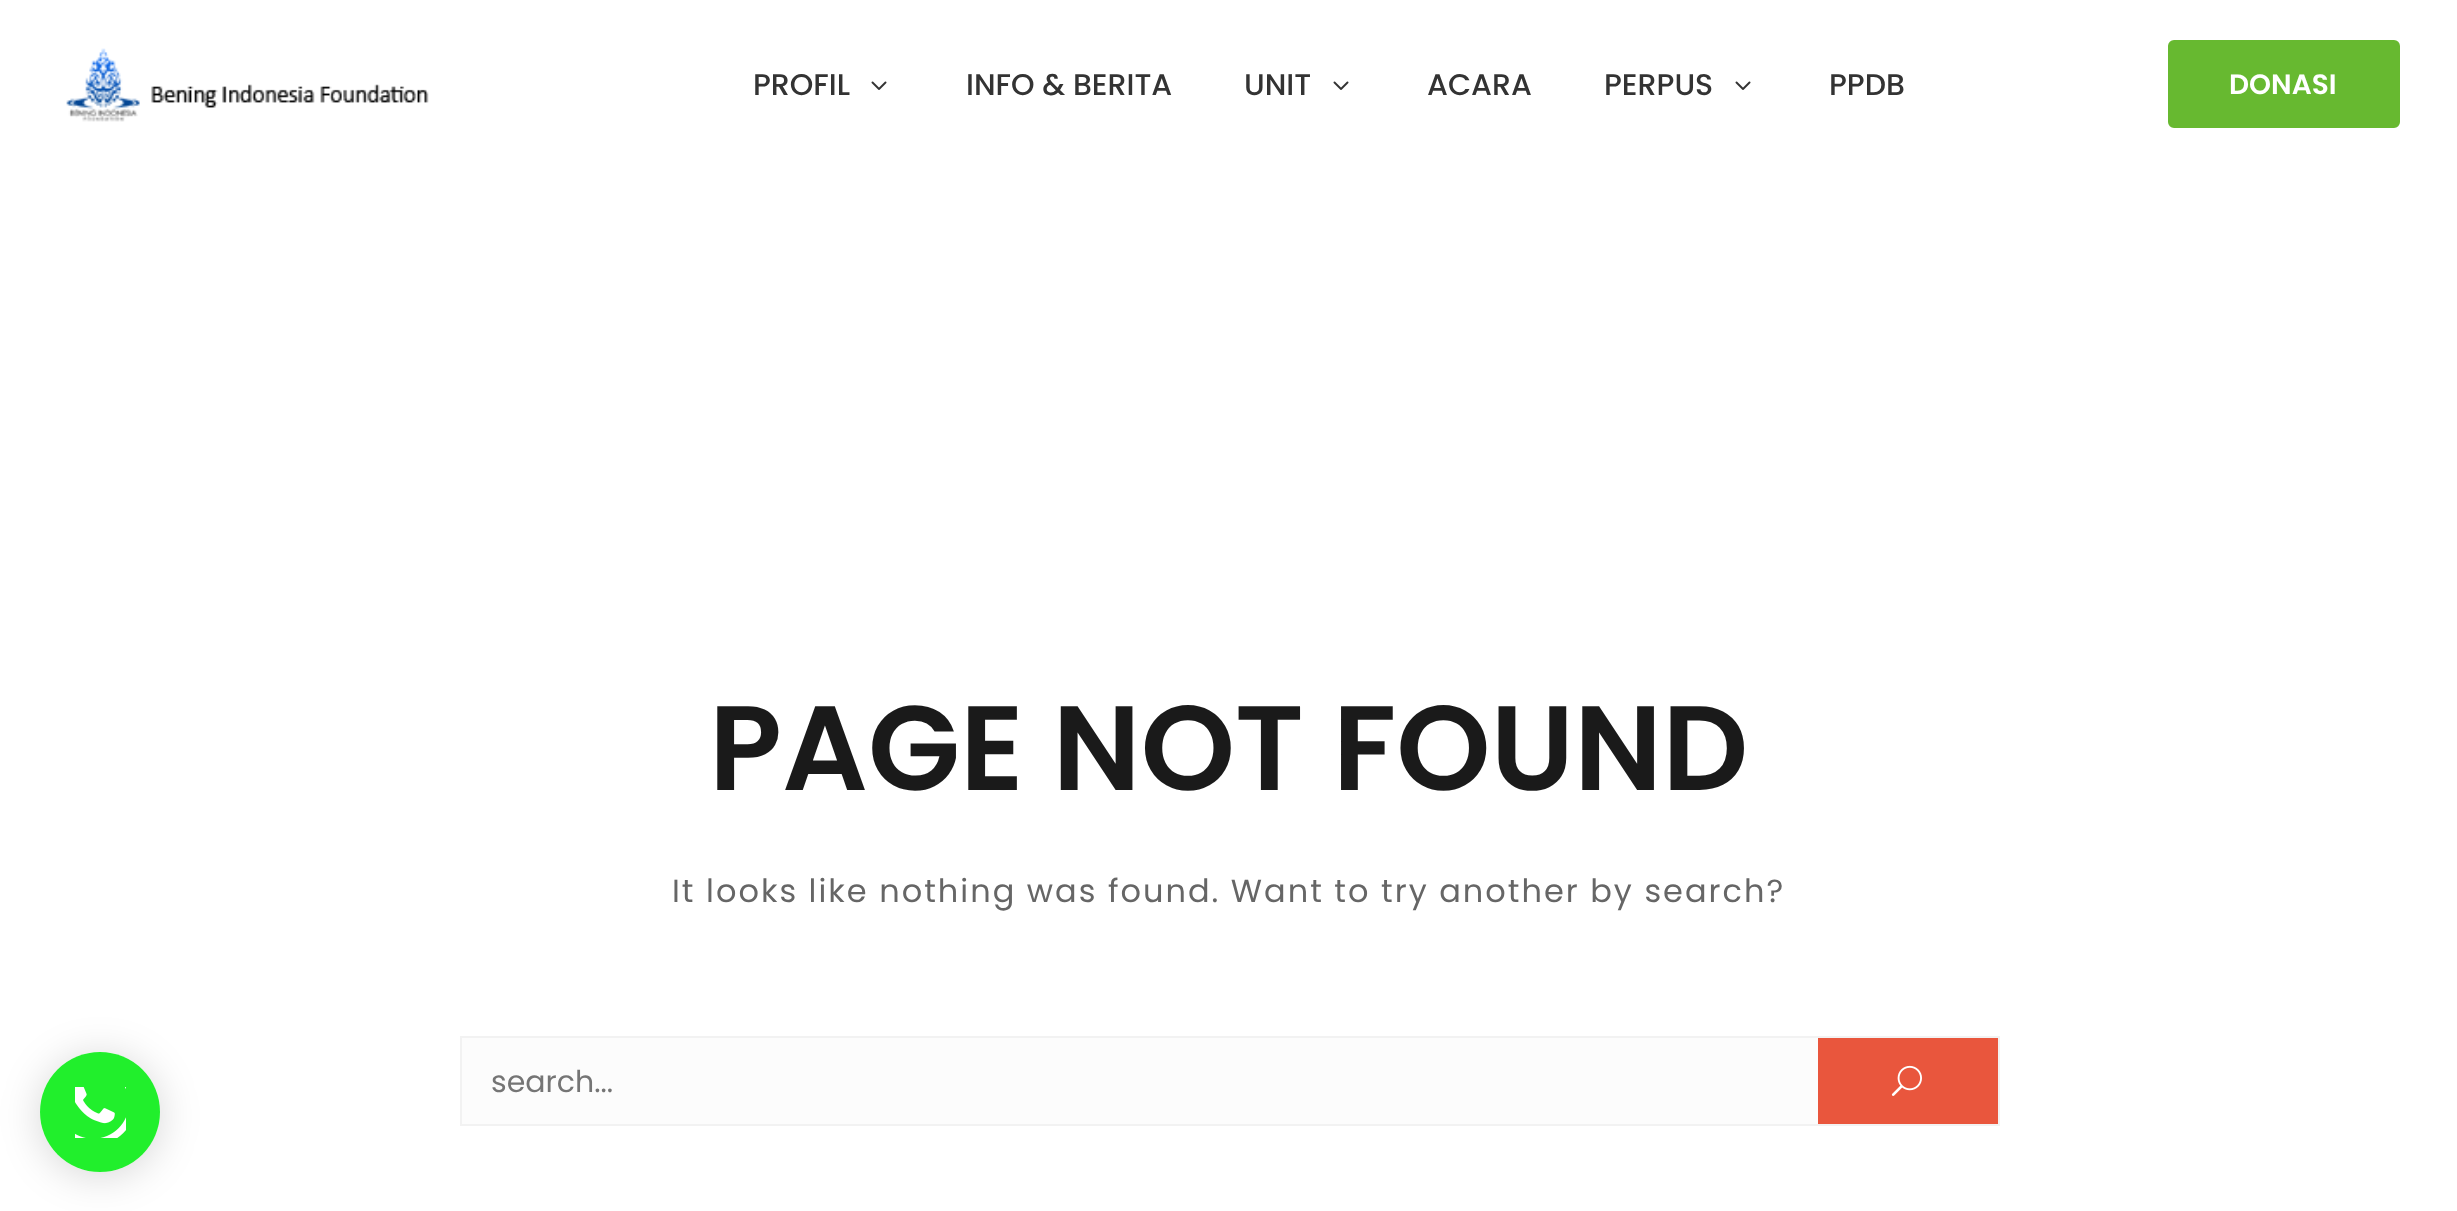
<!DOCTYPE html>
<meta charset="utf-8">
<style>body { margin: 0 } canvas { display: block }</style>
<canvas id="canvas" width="2457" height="1211"></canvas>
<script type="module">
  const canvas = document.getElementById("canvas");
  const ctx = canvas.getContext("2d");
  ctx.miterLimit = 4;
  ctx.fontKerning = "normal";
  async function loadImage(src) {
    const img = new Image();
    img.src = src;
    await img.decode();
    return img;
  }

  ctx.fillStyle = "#ffffff";
  ctx.fillRect(0, 0, 2457, 1211);
  ctx.drawImage(await loadImage("img1.png"), 66, 48, 363, 74);
  ctx.font = "500 30px Poppins";
  ctx.fillStyle = "#333333";
  ctx.fillText("PROFIL", 753, 95);
  ctx.drawImage(await loadImage("img2.png"), 871, 81, 16, 9);
  ctx.fillText("INFO & BERITA", 966, 95);
  ctx.fillText("UNIT", 1244, 95);
  ctx.drawImage(await loadImage("img2.png"), 1333, 81, 16, 9);
  ctx.fillText("ACARA", 1427, 95);
  ctx.fillText("PERPUS", 1604, 95);
  ctx.drawImage(await loadImage("img2.png"), 1735, 81, 16, 9);
  ctx.fillText("PPDB", 1829, 95);
  ctx.fillStyle = "#67b930";
  ctx.beginPath();
  ctx.roundRect(2169, 41, 230, 86, 5);
  ctx.fill();
  ctx.strokeStyle = "#67b930";
  ctx.lineWidth = 2;
  ctx.stroke();
  ctx.font = "600 28px Poppins";
  ctx.fillStyle = "#ffffff";
  ctx.fillText("DONASI", 2229, 94);
  ctx.save();
  ctx.beginPath();
  ctx.moveTo(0, 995);
  ctx.lineTo(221, 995);
  ctx.lineTo(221, 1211);
  ctx.lineTo(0, 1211);
  ctx.closePath();
  ctx.moveTo(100, 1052);
  ctx.bezierCurveTo(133, 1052, 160, 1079, 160, 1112);
  ctx.bezierCurveTo(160, 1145, 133, 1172, 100, 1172);
  ctx.bezierCurveTo(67, 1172, 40, 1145, 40, 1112);
  ctx.bezierCurveTo(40, 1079, 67, 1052, 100, 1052);
  ctx.closePath();
  ctx.clip("evenodd");
  ctx.fillStyle = "rgba(0, 0, 0, 0.16)";
  ctx.filter = "blur(20px)";
  ctx.beginPath();
  ctx.roundRect(40, 1056, 120, 120, 60);
  ctx.fill();
  ctx.filter = "none";
  ctx.restore();
  ctx.fillStyle = "rgba(9, 237, 21, 0.9)";
  ctx.beginPath();
  ctx.arc(100, 1112, 60, 0, Math.PI * 2);
  ctx.fill();
  ctx.drawImage(await loadImage("img3.png"), 75, 1087, 51, 51);
  ctx.font = "600 120px Poppins";
  ctx.fillStyle = "#1a1a1a";
  ctx.fillText("PAGE NOT FOUND", 709, 790);
  ctx.letterSpacing = "2px";
  ctx.font = "32px Poppins";
  ctx.fillStyle = "#666666";
  ctx.fillText("It looks like nothing was found. Want to try another by search?", 672, 902);
  ctx.fillStyle = "#fcfcfc";
  ctx.fillRect(462, 1038, 1356, 86);
  ctx.strokeStyle = "#f2f2f2";
  ctx.strokeRect(461, 1037, 1538, 88);
  ctx.letterSpacing = "0px";
  ctx.font = "30px Poppins";
  ctx.fillStyle = "#757575";
  ctx.fillText("search...", 491, 1092);
  ctx.fillStyle = "#e9563d";
  ctx.fillRect(1818, 1038, 180, 86);
  ctx.drawImage(await loadImage("img4.png"), 1891, 1065, 31, 31);
</script>
